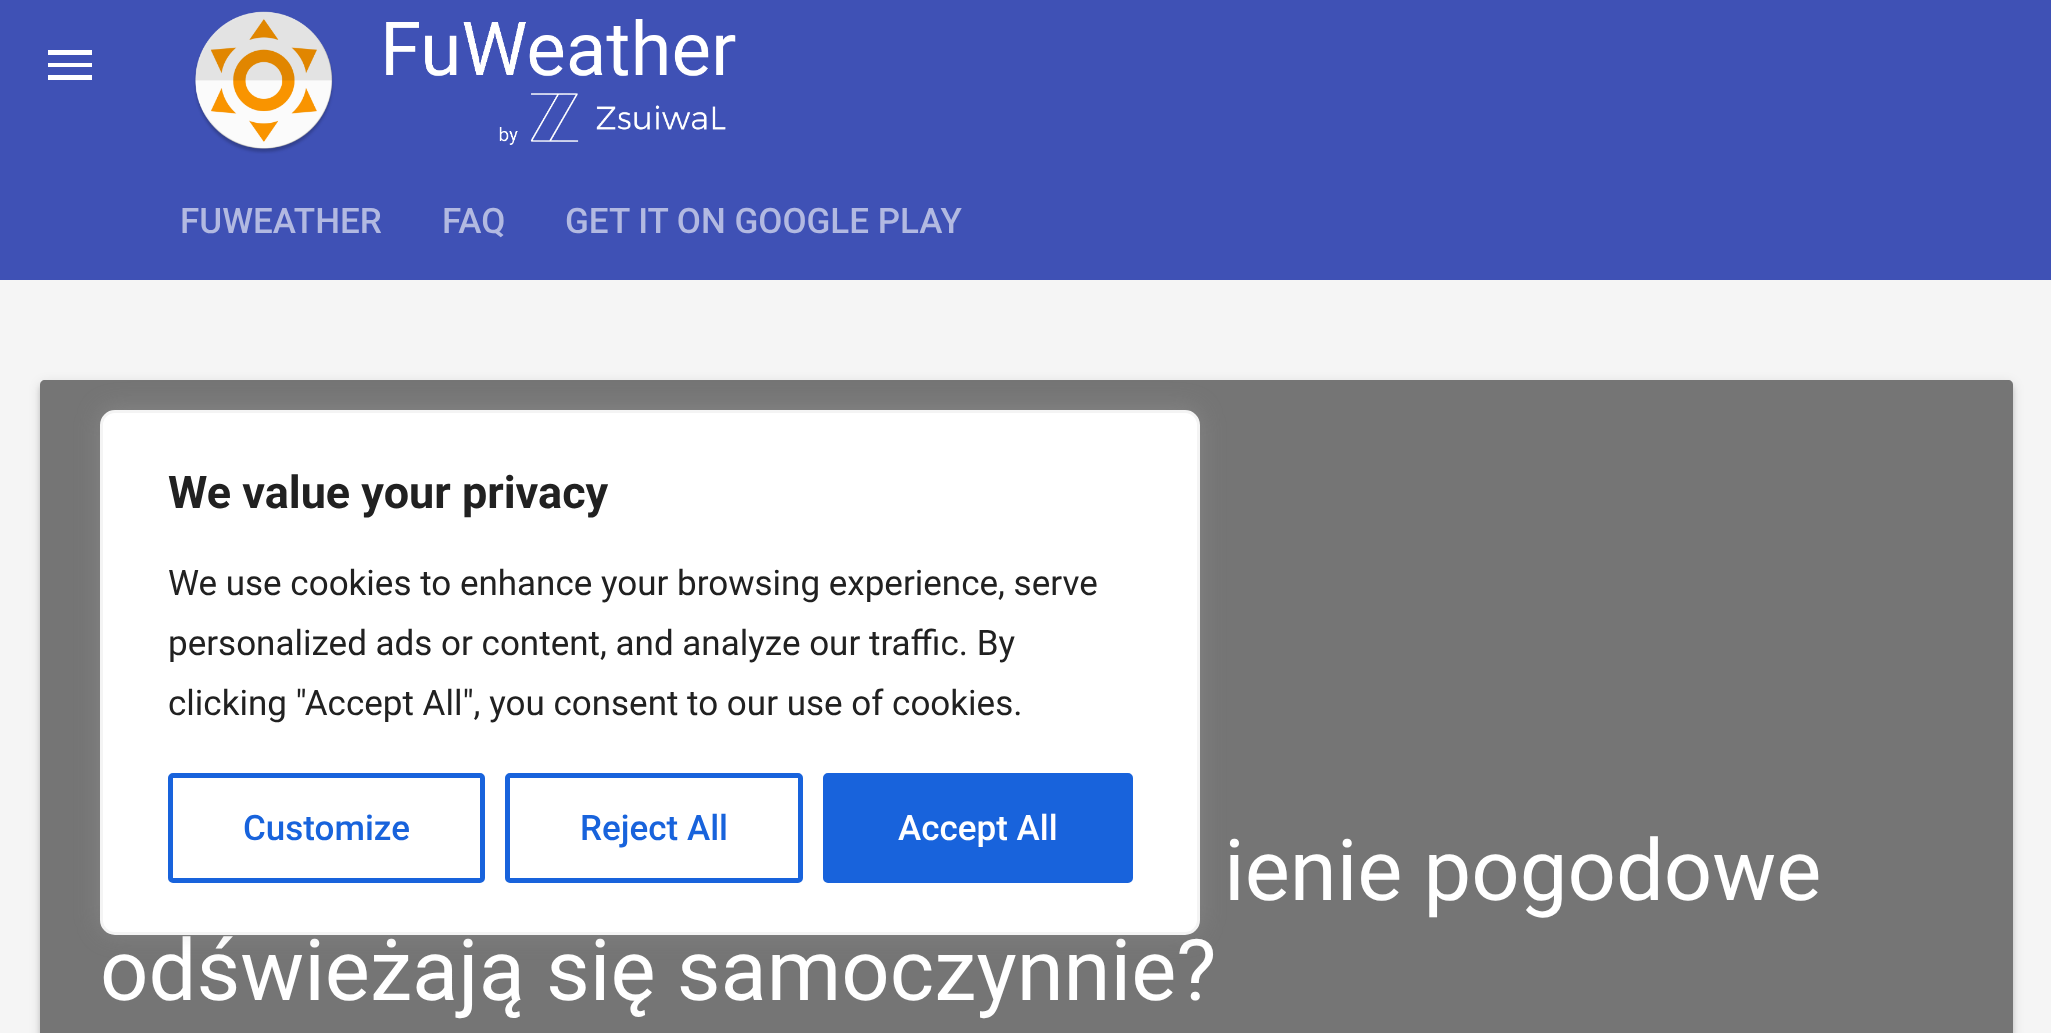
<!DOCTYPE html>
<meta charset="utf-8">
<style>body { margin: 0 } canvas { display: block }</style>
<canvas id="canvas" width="2051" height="1033"></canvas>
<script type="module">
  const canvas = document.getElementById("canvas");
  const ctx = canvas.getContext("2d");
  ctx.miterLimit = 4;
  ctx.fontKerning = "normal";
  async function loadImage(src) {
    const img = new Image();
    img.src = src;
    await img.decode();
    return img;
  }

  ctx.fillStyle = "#f5f5f5";
  ctx.fillRect(0, 0, 2051, 1033);
  ctx.fillStyle = "#3f51b5";
  ctx.fillRect(0, 0, 2051, 280);
  ctx.fillStyle = "#ffffff";
  ctx.beginPath();
  ctx.moveTo(48, 50);
  ctx.lineTo(92, 50);
  ctx.lineTo(92, 55);
  ctx.lineTo(48, 55);
  ctx.closePath();
  ctx.moveTo(48, 67);
  ctx.lineTo(48, 63);
  ctx.lineTo(92, 63);
  ctx.lineTo(92, 67);
  ctx.closePath();
  ctx.moveTo(48, 80);
  ctx.lineTo(48, 75);
  ctx.lineTo(92, 75);
  ctx.lineTo(92, 80);
  ctx.closePath();
  ctx.fill();
  ctx.drawImage(await loadImage("img1.png"), 194, 11, 542, 143);
  ctx.font = "500 35px Roboto";
  ctx.fillStyle = "#b2b9e1";
  ctx.fillText("FUWEATHER", 180, 233);
  ctx.fillText("FAQ", 442, 233);
  ctx.fillText("GET IT ON GOOGLE PLAY", 565, 233);
  ctx.fillStyle = "rgba(0, 0, 0, 0.12)";
  ctx.filter = "blur(6px)";
  ctx.beginPath();
  ctx.roundRect(40, 383, 1973, 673, 5);
  ctx.fill();
  ctx.filter = "none";
  ctx.fillStyle = "rgba(0, 0, 0, 0.14)";
  ctx.filter = "blur(2.5px)";
  ctx.beginPath();
  ctx.roundRect(40, 385, 1973, 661, 5);
  ctx.fill();
  ctx.filter = "none";
  ctx.fillStyle = "#757575";
  ctx.beginPath();
  ctx.moveTo(45, 380);
  ctx.lineTo(2008, 380);
  ctx.bezierCurveTo(2011, 380, 2013, 382, 2013, 385);
  ctx.lineTo(2013, 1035);
  ctx.lineTo(40, 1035);
  ctx.lineTo(40, 385);
  ctx.bezierCurveTo(40, 382, 42, 380, 45, 380);
  ctx.closePath();
  ctx.fill();
  ctx.font = "85px Roboto";
  ctx.fillStyle = "#ffffff";
  ctx.fillText("ienie pogodowe", 1224, 900);
  ctx.fillText("odświeżają się samoczynnie?", 100, 1000);
  ctx.fillStyle = "rgba(172, 171, 171, 0.3)";
  ctx.filter = "blur(12.5px)";
  ctx.beginPath();
  ctx.roundRect(100, 408, 1100, 525, 15);
  ctx.fill();
  ctx.filter = "none";
  ctx.fillStyle = "#ffffff";
  ctx.beginPath();
  ctx.roundRect(101.5, 411.5, 1097, 522, 13.5);
  ctx.fill();
  ctx.strokeStyle = "#f4f4f4";
  ctx.lineWidth = 3;
  ctx.stroke();
  ctx.font = "bold 45px Roboto";
  ctx.fillStyle = "#212121";
  ctx.fillText("We value your privacy", 168, 508);
  ctx.font = "35px Roboto";
  ctx.fillText("We use cookies to enhance your browsing experience, serve", 168, 595);
  ctx.fillText("personalized ads or content, and analyze our traffic. By", 168, 655);
  ctx.fillText("clicking \"Accept All\", you consent to our use of cookies.", 168, 715);
  ctx.beginPath();
  ctx.roundRect(170.5, 775.5, 312, 105, 2.5);
  ctx.strokeStyle = "#1863dc";
  ctx.lineWidth = 5;
  ctx.stroke();
  ctx.font = "500 35px Roboto";
  ctx.fillStyle = "#1863dc";
  ctx.fillText("Customize", 243, 840);
  ctx.beginPath();
  ctx.roundRect(507.5, 775.5, 293, 105, 2.5);
  ctx.stroke();
  ctx.fillText("Reject All", 580, 840);
  ctx.beginPath();
  ctx.roundRect(825.5, 775.5, 305, 105, 2.5);
  ctx.fill();
  ctx.stroke();
  ctx.fillStyle = "#ffffff";
  ctx.fillText("Accept All", 898, 840);
</script>
